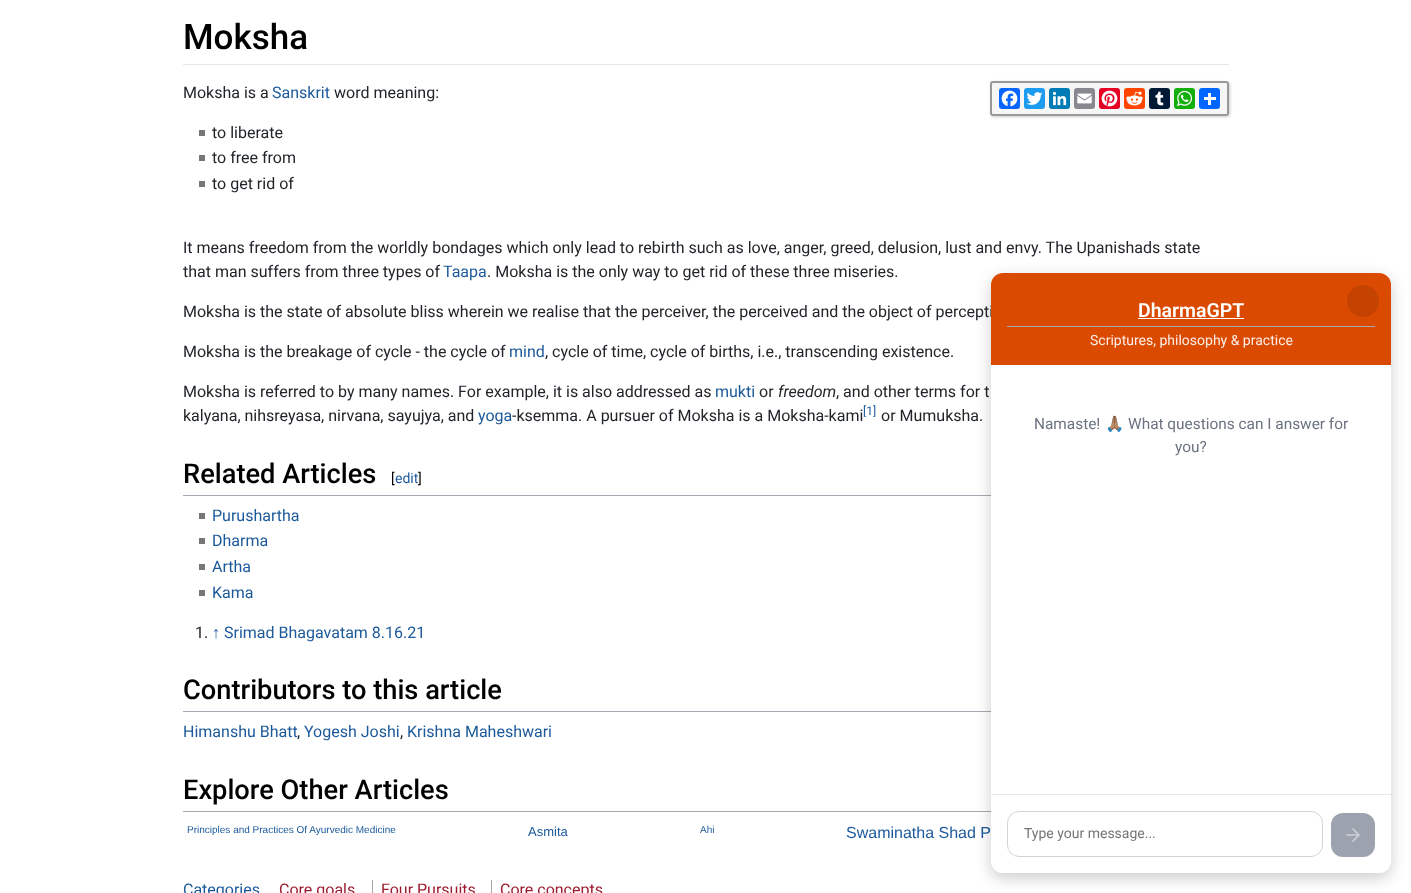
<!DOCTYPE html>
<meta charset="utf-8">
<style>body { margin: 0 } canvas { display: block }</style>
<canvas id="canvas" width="1411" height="893"></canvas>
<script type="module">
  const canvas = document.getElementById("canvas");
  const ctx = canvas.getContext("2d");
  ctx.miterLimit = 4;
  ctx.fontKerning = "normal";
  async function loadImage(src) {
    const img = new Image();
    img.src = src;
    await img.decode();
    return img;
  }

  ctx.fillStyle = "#ffffff";
  ctx.fillRect(0, 0, 1411, 893);
  ctx.fillStyle = "#e6e6e6";
  ctx.fillRect(183, 64, 1046, 1);
  ctx.font = "500 35px Roboto";
  ctx.fillStyle = "#000000";
  ctx.fillText("Moksha", 183, 49);
  ctx.fillStyle = "rgba(0, 0, 0, 0.2)";
  ctx.filter = "blur(1.5px)";
  ctx.beginPath();
  ctx.roundRect(991, 82, 239, 35, 3);
  ctx.fill();
  ctx.filter = "none";
  ctx.fillStyle = "#f6f6f6";
  ctx.beginPath();
  ctx.roundRect(991, 82, 237, 33, 2);
  ctx.fill();
  ctx.strokeStyle = "#999999";
  ctx.lineWidth = 2;
  ctx.stroke();
  ctx.fillStyle = "#0866ff";
  ctx.beginPath();
  ctx.roundRect(999, 88, 21, 21, 3);
  ctx.fill();
  ctx.drawImage(await loadImage("img1.png"), 1001, 90, 17, 17);
  ctx.fillStyle = "#1d9bf0";
  ctx.beginPath();
  ctx.roundRect(1024, 88, 21, 21, 3);
  ctx.fill();
  ctx.drawImage(await loadImage("img2.png"), 1026, 92, 17, 13);
  ctx.fillStyle = "#007bb5";
  ctx.beginPath();
  ctx.roundRect(1049, 88, 21, 21, 3);
  ctx.fill();
  ctx.drawImage(await loadImage("img3.png"), 1052, 91, 15, 15);
  ctx.fillStyle = "#888990";
  ctx.beginPath();
  ctx.roundRect(1074, 88, 21, 21, 3);
  ctx.fill();
  ctx.drawImage(await loadImage("img4.png"), 1077, 93, 15, 11);
  ctx.fillStyle = "#e60023";
  ctx.beginPath();
  ctx.roundRect(1099, 88, 21, 21, 3);
  ctx.fill();
  ctx.drawImage(await loadImage("img5.png"), 1101, 90, 17, 17);
  ctx.fillStyle = "#ff4500";
  ctx.beginPath();
  ctx.roundRect(1124, 88, 21, 21, 3);
  ctx.fill();
  ctx.drawImage(await loadImage("img6.png"), 1126, 91, 17, 15);
  ctx.fillStyle = "#001935";
  ctx.beginPath();
  ctx.roundRect(1149, 88, 21, 21, 3);
  ctx.fill();
  ctx.drawImage(await loadImage("img7.png"), 1155, 91, 9, 15);
  ctx.fillStyle = "#12af0a";
  ctx.beginPath();
  ctx.roundRect(1174, 88, 21, 21, 3);
  ctx.fill();
  ctx.drawImage(await loadImage("img8.png"), 1177, 90, 15, 16);
  ctx.fillStyle = "#0166ff";
  ctx.beginPath();
  ctx.roundRect(1199, 88, 21, 21, 3);
  ctx.fill();
  ctx.fillStyle = "#ffffff";
  ctx.fillRect(1208, 93, 3, 12);
  ctx.fillRect(1204, 97, 12, 3);
  ctx.font = "16px Roboto";
  ctx.fillStyle = "#212529";
  ctx.fillText("Moksha is a", 183, 98);
  ctx.fillStyle = "#1b599b";
  ctx.fillText("Sanskrit", 272, 98);
  ctx.fillStyle = "#212529";
  ctx.fillText("word meaning:", 334, 98);
  ctx.fillStyle = "#777777";
  ctx.fillRect(199, 130, 6, 6);
  ctx.fillStyle = "#212529";
  ctx.fillText("to liberate", 212, 138);
  ctx.fillStyle = "#777777";
  ctx.fillRect(199, 155, 6, 6);
  ctx.fillStyle = "#212529";
  ctx.fillText("to free from", 212, 163);
  ctx.fillStyle = "#777777";
  ctx.fillRect(199, 181, 6, 6);
  ctx.fillStyle = "#212529";
  ctx.fillText("to get rid of", 212, 189);
  ctx.fillText("It means freedom from the worldly bondages which only lead to rebirth such as love, anger, greed, delusion, lust and envy. The Upanishads state", 183, 253);
  ctx.fillText("that man suffers from three types of", 183, 277);
  ctx.fillStyle = "#1b599b";
  ctx.fillText("Taapa", 443, 277);
  ctx.fillStyle = "#212529";
  ctx.fillText(". Moksha is the only way to get rid of these three miseries.", 487, 277);
  ctx.fillText("Moksha is the state of absolute bliss wherein we realise that the perceiver, the perceived and the object of percepti", 183, 317);
  ctx.fillText("Moksha is the breakage of cycle - the cycle of", 183, 357);
  ctx.fillStyle = "#1b599b";
  ctx.fillText("mind", 509, 357);
  ctx.fillStyle = "#212529";
  ctx.fillText(", cycle of time, cycle of births, i.e., transcending existence.", 545, 357);
  ctx.fillText("Moksha is referred to by many names. For example, it is also addressed as", 183, 397);
  ctx.fillStyle = "#1b599b";
  ctx.fillText("mukti", 715, 397);
  ctx.fillStyle = "#212529";
  ctx.fillText("or", 759, 397);
  ctx.font = "italic 16px Roboto";
  ctx.fillText("freedom", 778, 397);
  ctx.font = "16px Roboto";
  ctx.fillText(", and other terms for t", 836, 397);
  ctx.fillText("kalyana, nihsreyasa, nirvana, sayujya, and", 183, 421);
  ctx.fillStyle = "#1b599b";
  ctx.fillText("yoga", 478, 421);
  ctx.fillStyle = "#212529";
  ctx.fillText("-ksemma. A pursuer of Moksha is a Moksha-kami", 512, 421);
  ctx.font = "12px Roboto";
  ctx.fillStyle = "#1b599b";
  ctx.fillText("[1]", 863, 415);
  ctx.font = "16px Roboto";
  ctx.fillStyle = "#212529";
  ctx.fillText("or Mumuksha.", 881, 421);
  ctx.fillStyle = "#a2a9b1";
  ctx.fillRect(183, 495, 808, 1);
  ctx.font = "500 27.25px Roboto";
  ctx.fillStyle = "#000000";
  ctx.fillText("Related Articles", 183, 483);
  ctx.font = "14px Roboto";
  ctx.fillText("[", 391, 483);
  ctx.fillStyle = "#1b599b";
  ctx.fillText("edit", 395, 483);
  ctx.fillStyle = "#000000";
  ctx.fillText("]", 418, 483);
  ctx.fillStyle = "#777777";
  ctx.fillRect(199, 513, 6, 6);
  ctx.font = "16px Roboto";
  ctx.fillStyle = "#1b599b";
  ctx.fillText("Purushartha", 212, 521);
  ctx.fillStyle = "#777777";
  ctx.fillRect(199, 538, 6, 6);
  ctx.fillStyle = "#1b599b";
  ctx.fillText("Dharma", 212, 546);
  ctx.fillStyle = "#777777";
  ctx.fillRect(199, 564, 6, 6);
  ctx.fillStyle = "#1b599b";
  ctx.fillText("Artha", 212, 572);
  ctx.fillStyle = "#777777";
  ctx.fillRect(199, 590, 6, 6);
  ctx.fillStyle = "#1b599b";
  ctx.fillText("Kama", 212, 598);
  ctx.fillStyle = "#212529";
  ctx.fillText("1.", 195, 638);
  ctx.font = "16px Liberation Sans";
  ctx.fillStyle = "#1b599b";
  ctx.fillText("↑", 212, 638);
  ctx.font = "16px Roboto";
  ctx.fillText("Srimad Bhagavatam 8.16.21", 224, 638);
  ctx.fillStyle = "#a2a9b1";
  ctx.fillRect(183, 711, 808, 1);
  ctx.font = "500 27.25px Roboto";
  ctx.fillStyle = "#000000";
  ctx.fillText("Contributors to this article", 183, 699);
  ctx.font = "16px Roboto";
  ctx.fillStyle = "#1b599b";
  ctx.fillText("Himanshu Bhatt", 183, 737);
  ctx.fillStyle = "#212529";
  ctx.fillText(",", 297, 737);
  ctx.fillStyle = "#1b599b";
  ctx.fillText("Yogesh Joshi", 304, 737);
  ctx.fillStyle = "#212529";
  ctx.fillText(",", 400, 737);
  ctx.fillStyle = "#1b599b";
  ctx.fillText("Krishna Maheshwari", 407, 737);
  ctx.fillStyle = "#a2a9b1";
  ctx.fillRect(183, 811, 808, 1);
  ctx.font = "500 27.25px Roboto";
  ctx.fillStyle = "#000000";
  ctx.fillText("Explore Other Articles", 183, 799);
  ctx.font = "10px Liberation Sans";
  ctx.fillStyle = "#1b599b";
  ctx.fillText("Principles and Practices Of Ayurvedic Medicine", 187, 833);
  ctx.font = "13px Liberation Sans";
  ctx.fillText("Asmita", 528, 836);
  ctx.font = "10px Liberation Sans";
  ctx.fillText("Ahi", 700, 833);
  ctx.font = "16px Liberation Sans";
  ctx.fillText("Swaminatha Shad P", 846, 838);
  ctx.font = "16px Roboto";
  ctx.fillText("Categories", 183, 895);
  ctx.fillStyle = "#9b1b2f";
  ctx.fillText("Core goals", 279, 895);
  ctx.fillStyle = "#a2a9b1";
  ctx.fillRect(372, 880, 1, 13);
  ctx.fillStyle = "#9b1b2f";
  ctx.fillText("Four Pursuits", 381, 895);
  ctx.fillStyle = "#a2a9b1";
  ctx.fillRect(491, 880, 1, 13);
  ctx.fillStyle = "#9b1b2f";
  ctx.fillText("Core concepts", 500, 895);
  ctx.fillStyle = "rgba(0, 0, 0, 0.2)";
  ctx.filter = "blur(7.5px)";
  ctx.beginPath();
  ctx.roundRect(991, 278, 400, 600, 12);
  ctx.fill();
  ctx.filter = "none";
  ctx.fillStyle = "#ffffff";
  ctx.beginPath();
  ctx.roundRect(991, 273, 400, 600, 12);
  ctx.fill();
  ctx.fillStyle = "#da4a00";
  ctx.beginPath();
  ctx.roundRect(991, 273, 400, 92, [12, 12, 0, 0]);
  ctx.fill();
  ctx.fillStyle = "#a2a9b1";
  ctx.fillRect(1007, 326, 368, 1);
  ctx.font = "600 19.5px Roboto";
  ctx.fillStyle = "#ffffff";
  ctx.fillText("DharmaGPT", 1138, 317);
  ctx.fillRect(1138, 318, 106, 1);
  ctx.fillStyle = "#c44300";
  ctx.beginPath();
  ctx.arc(1363, 301, 16, 0, Math.PI * 2);
  ctx.fill();
  ctx.font = "14px Roboto";
  ctx.fillStyle = "#fbede6";
  ctx.fillText("Scriptures, philosophy & practice", 1090, 345);
  ctx.font = "15.4px Roboto";
  ctx.fillStyle = "#6b7280";
  ctx.fillText("Namaste!", 1034, 429);
  ctx.font = "15.4px Noto Color Emoji";
  ctx.fillText("🙏🏽", 1105, 429);
  ctx.font = "15.4px Roboto";
  ctx.fillText("What questions can I answer for", 1128, 429);
  ctx.fillText("you?", 1175, 452);
  ctx.fillStyle = "#ffffff";
  ctx.beginPath();
  ctx.roundRect(991, 794, 400, 79, [0, 0, 12, 12]);
  ctx.fill();
  ctx.fillStyle = "#e5e7eb";
  ctx.fillRect(991, 794, 400, 1);
  ctx.beginPath();
  ctx.roundRect(1007.5, 811.5, 315, 45, 11.5);
  ctx.strokeStyle = "#d1d5db";
  ctx.lineWidth = 1;
  ctx.stroke();
  ctx.font = "14px Roboto";
  ctx.fillStyle = "#757575";
  ctx.fillText("Type your message...", 1024, 838);
  ctx.fillStyle = "#9ca3af";
  ctx.beginPath();
  ctx.roundRect(1331, 813, 44, 44, 12);
  ctx.fill();
  ctx.beginPath();
  ctx.moveTo(1347, 835);
  ctx.lineTo(1359, 835);
  ctx.moveTo(1353, 829);
  ctx.lineTo(1359, 835);
  ctx.lineTo(1353, 841);
  ctx.strokeStyle = "#ced1d7";
  ctx.lineWidth = 1.7;
  ctx.lineCap = "round";
  ctx.lineJoin = "round";
  ctx.stroke();
</script>
